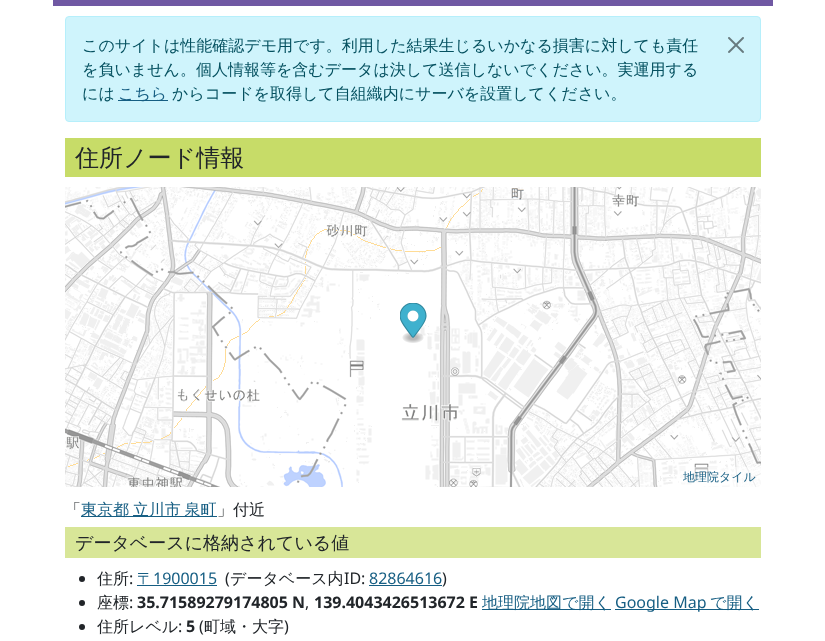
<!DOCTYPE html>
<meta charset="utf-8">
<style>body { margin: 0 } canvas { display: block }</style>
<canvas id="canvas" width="825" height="641"></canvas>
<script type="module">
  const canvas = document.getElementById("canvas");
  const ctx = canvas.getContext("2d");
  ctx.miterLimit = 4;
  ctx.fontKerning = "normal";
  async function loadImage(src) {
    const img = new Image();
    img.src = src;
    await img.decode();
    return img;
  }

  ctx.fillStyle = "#ffffff";
  ctx.fillRect(0, 0, 825, 641);
  ctx.fillStyle = "#7058a3";
  ctx.fillRect(53, 0, 720, 6);
  ctx.fillStyle = "#cff4fc";
  ctx.beginPath();
  ctx.roundRect(65.5, 16.5, 695, 105, 3.5);
  ctx.fill();
  ctx.strokeStyle = "#b6effb";
  ctx.stroke();
  ctx.font = "500 16px WenQuanYi Zen Hei";
  ctx.fillStyle = "#055160";
  ctx.fillText("このサイトは性能確認デモ用です。利用した結果生じるいかなる損害に対しても責任", 82, 51);
  ctx.drawImage(await loadImage("img1.png"), 728, 37, 16, 16);
  ctx.fillText("を負いません。個人情報等を含むデータは決して送信しないでください。実運用する", 82, 75);
  ctx.fillText("には", 82, 99);
  ctx.fillStyle = "#165e83";
  ctx.fillRect(118, 100, 50, 1);
  ctx.fillText("こちら", 118, 99);
  ctx.fillStyle = "#055160";
  ctx.fillText("からコードを取得して自組織内にサーバを設置してください。", 172, 99);
  ctx.fillStyle = "#c7dc68";
  ctx.fillRect(65, 138, 696, 39);
  ctx.font = "500 24px WenQuanYi Zen Hei";
  ctx.fillStyle = "#212529";
  ctx.fillText("住所ノード情報", 75, 166);
  ctx.drawImage(await loadImage("img2.png"), 65, 187, 696, 300);
  ctx.drawImage(await loadImage("img3.png"), 400, 303, 27, 40);
  ctx.fillStyle = "rgba(255, 255, 255, 0.5)";
  ctx.fillRect(678, 467, 83, 20);
  ctx.font = "500 12px WenQuanYi Zen Hei";
  ctx.fillStyle = "#165e83";
  ctx.fillText("地理院タイル", 683, 481);
  ctx.font = "500 16px WenQuanYi Zen Hei";
  ctx.fillStyle = "#212529";
  ctx.fillText("「", 65, 515);
  ctx.fillStyle = "#165e83";
  ctx.fillRect(81, 516, 136, 1);
  ctx.wordSpacing = "-1px";
  ctx.fillText("東京都 立川市 泉町", 81, 515);
  ctx.wordSpacing = "0px";
  ctx.fillStyle = "#212529";
  ctx.fillText("」付近", 217, 515);
  ctx.fillStyle = "#d8e698";
  ctx.fillRect(65, 527, 696, 31);
  ctx.font = "500 18px WenQuanYi Zen Hei";
  ctx.fillStyle = "#212529";
  ctx.fillText("データベースに格納されている値", 75, 549);
  ctx.beginPath();
  ctx.arc(82, 579, 3, 0, Math.PI * 2);
  ctx.fill();
  ctx.font = "500 16px WenQuanYi Zen Hei";
  ctx.fillText("住所", 97, 584);
  ctx.font = "16px Noto Sans";
  ctx.fillText(":", 129, 584);
  ctx.font = "500 16px WenQuanYi Zen Hei";
  ctx.fillStyle = "#165e83";
  ctx.fillText("〒", 137, 584);
  ctx.fillRect(137, 585, 80, 1);
  ctx.font = "16px Noto Sans";
  ctx.fillText("1900015", 153, 584);
  ctx.fillStyle = "#212529";
  ctx.fillText("(", 225, 584);
  ctx.font = "500 16px WenQuanYi Zen Hei";
  ctx.fillText("データベース内", 230, 584);
  ctx.font = "16px Noto Sans";
  ctx.fillText("ID:", 344, 584);
  ctx.fillStyle = "#165e83";
  ctx.fillText("82864616", 369, 584);
  ctx.fillRect(369, 585, 73, 1);
  ctx.fillStyle = "#212529";
  ctx.fillText(")", 442, 584);
  ctx.beginPath();
  ctx.arc(82, 603, 3, 0, Math.PI * 2);
  ctx.fill();
  ctx.font = "500 16px WenQuanYi Zen Hei";
  ctx.fillText("座標", 97, 608);
  ctx.font = "16px Noto Sans";
  ctx.fillText(":", 129, 608);
  ctx.font = "bold 16px Noto Sans";
  ctx.fillText("35.71589279174805 N", 137, 608);
  ctx.fillText("139.4043426513672 E", 314, 608);
  ctx.fillStyle = "#165e83";
  ctx.fillRect(482, 609, 129, 1);
  ctx.font = "500 16px WenQuanYi Zen Hei";
  ctx.fillText("地理院地図で開く", 482, 608);
  ctx.fillRect(615, 609, 144, 1);
  ctx.font = "16px Noto Sans";
  ctx.fillText("Google Map", 615, 608);
  ctx.font = "500 16px WenQuanYi Zen Hei";
  ctx.fillText("で開く", 710, 608);
  ctx.font = "16px Noto Sans";
  ctx.fillStyle = "#212529";
  ctx.fillText(",", 305, 608);
  ctx.beginPath();
  ctx.arc(82, 627, 3, 0, Math.PI * 2);
  ctx.fill();
  ctx.font = "500 16px WenQuanYi Zen Hei";
  ctx.fillText("住所レベル", 97, 632);
  ctx.font = "16px Noto Sans";
  ctx.fillText(":", 178, 632);
  ctx.font = "bold 16px Noto Sans";
  ctx.fillText("5", 186, 632);
  ctx.font = "16px Noto Sans";
  ctx.fillText("(", 199, 632);
  ctx.font = "500 16px WenQuanYi Zen Hei";
  ctx.fillText("町域・大字", 204, 632);
  ctx.font = "16px Noto Sans";
  ctx.fillText(")", 284, 632);
</script>
